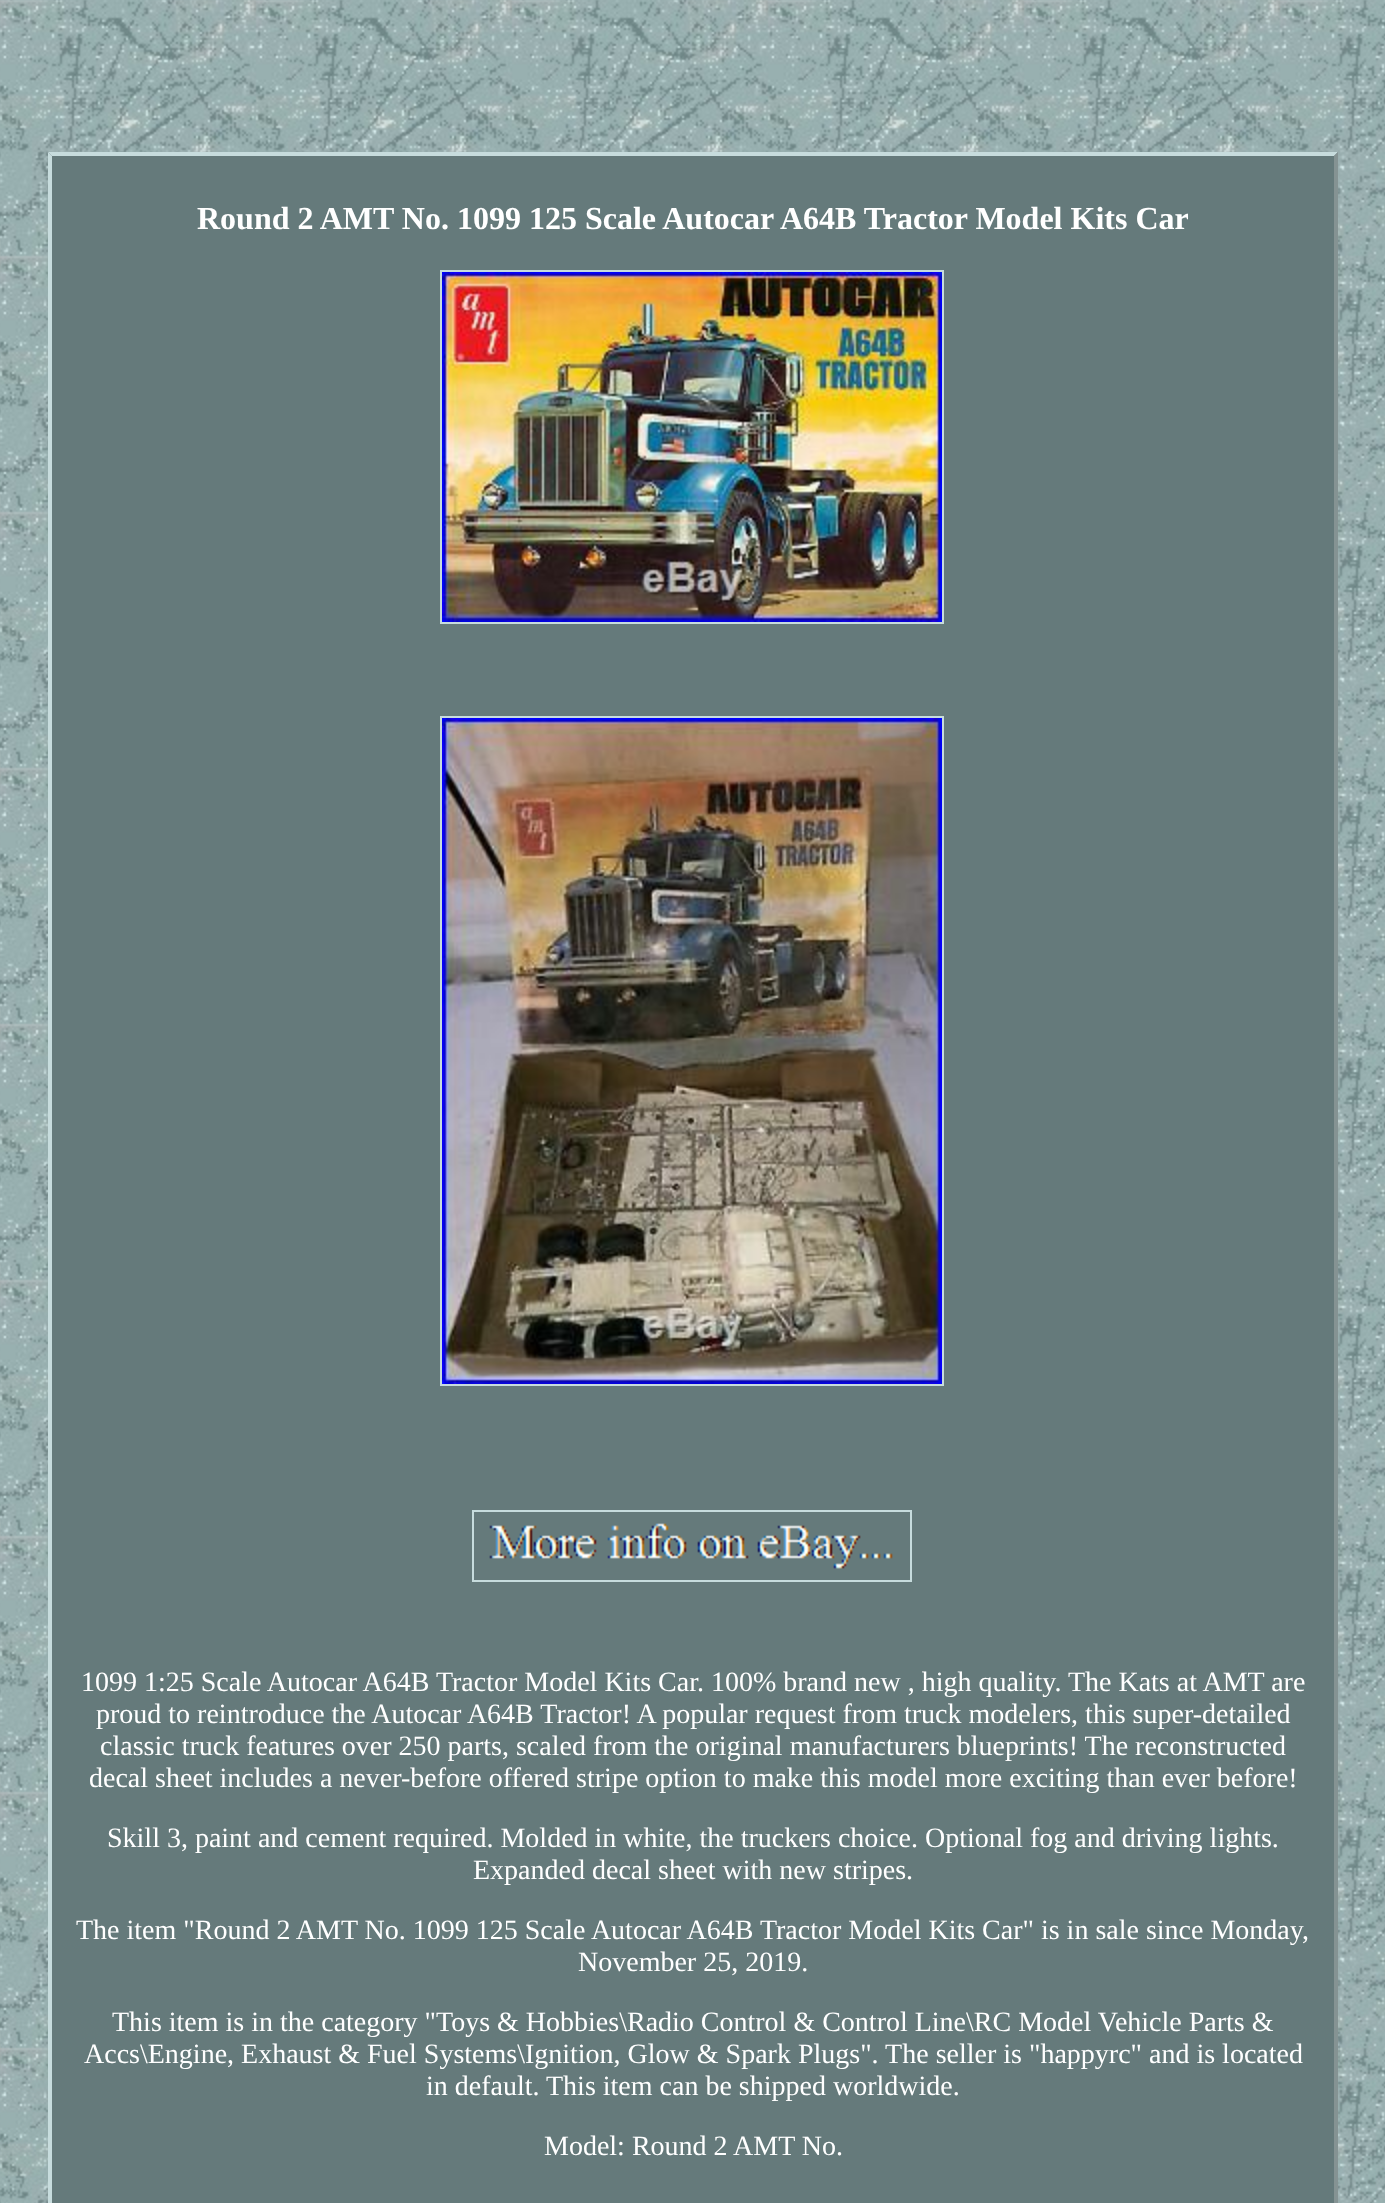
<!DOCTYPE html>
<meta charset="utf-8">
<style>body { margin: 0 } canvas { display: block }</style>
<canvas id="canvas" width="1385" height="2203"></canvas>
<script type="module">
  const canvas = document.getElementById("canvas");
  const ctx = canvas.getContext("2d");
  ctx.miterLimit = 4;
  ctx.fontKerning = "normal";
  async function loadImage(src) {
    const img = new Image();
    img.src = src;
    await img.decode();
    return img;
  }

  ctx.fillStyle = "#ffffff";
  ctx.fillRect(0, 0, 1385, 2203);
  ctx.drawImage(await loadImage("img1.png"), 0, 0, 1385, 2203);
  ctx.fillStyle = "#657a7b";
  ctx.fillRect(48, 152, 1290, 2051);
  ctx.fillStyle = "#c7dcdd";
  ctx.beginPath();
  ctx.moveTo(48, 152);
  ctx.lineTo(1338, 152);
  ctx.lineTo(1334, 156);
  ctx.lineTo(52, 156);
  ctx.closePath();
  ctx.fill();
  ctx.fillStyle = "#859393";
  ctx.beginPath();
  ctx.moveTo(1338, 152);
  ctx.lineTo(1338, 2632);
  ctx.lineTo(1334, 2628);
  ctx.lineTo(1334, 156);
  ctx.closePath();
  ctx.fill();
  ctx.fillStyle = "#c7dcdd";
  ctx.beginPath();
  ctx.moveTo(48, 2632);
  ctx.lineTo(48, 152);
  ctx.lineTo(52, 156);
  ctx.lineTo(52, 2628);
  ctx.closePath();
  ctx.fill();
  ctx.font = "bold 32px Liberation Serif";
  ctx.fillStyle = "#ffffff";
  ctx.fillText("Round 2 AMT No. 1099 125 Scale Autocar A64B Tractor Model Kits Car", 197, 229);
  ctx.strokeStyle = "#c7dcdd";
  ctx.lineWidth = 2;
  ctx.strokeRect(441, 271, 502, 352);
  ctx.drawImage(await loadImage("img2.png"), 442, 272, 500, 350);
  ctx.strokeRect(441, 717, 502, 668);
  ctx.drawImage(await loadImage("img3.png"), 442, 718, 500, 666);
  ctx.strokeRect(473, 1511, 438, 70);
  ctx.drawImage(await loadImage("img4.png"), 489, 1523, 404, 46);
  ctx.font = "28px Liberation Serif";
  ctx.fillText("1099 1:25 Scale Autocar A64B Tractor Model Kits Car. 100% brand new , high quality. The Kats at AMT are", 81, 1691);
  ctx.fillText("proud to reintroduce the Autocar A64B Tractor! A popular request from truck modelers, this super-detailed", 96, 1723);
  ctx.fillText("classic truck features over 250 parts, scaled from the original manufacturers blueprints! The reconstructed", 100, 1755);
  ctx.fillText("decal sheet includes a never-before offered stripe option to make this model more exciting than ever before!", 89, 1787);
  ctx.fillText("Skill 3, paint and cement required. Molded in white, the truckers choice. Optional fog and driving lights.", 107, 1847);
  ctx.fillText("Expanded decal sheet with new stripes.", 473, 1879);
  ctx.fillText("The item \"Round 2 AMT No. 1099 125 Scale Autocar A64B Tractor Model Kits Car\" is in sale since Monday,", 76, 1939);
  ctx.fillText("November 25, 2019.", 578, 1971);
  ctx.fillText("This item is in the category \"Toys & Hobbies\\Radio Control & Control Line\\RC Model Vehicle Parts &", 112, 2031);
  ctx.fillText("Accs\\Engine, Exhaust & Fuel Systems\\Ignition, Glow & Spark Plugs\". The seller is \"happyrc\" and is located", 84, 2063);
  ctx.fillText("in default. This item can be shipped worldwide.", 426, 2095);
  ctx.fillText("Model: Round 2 AMT No.", 544, 2155);
</script>
